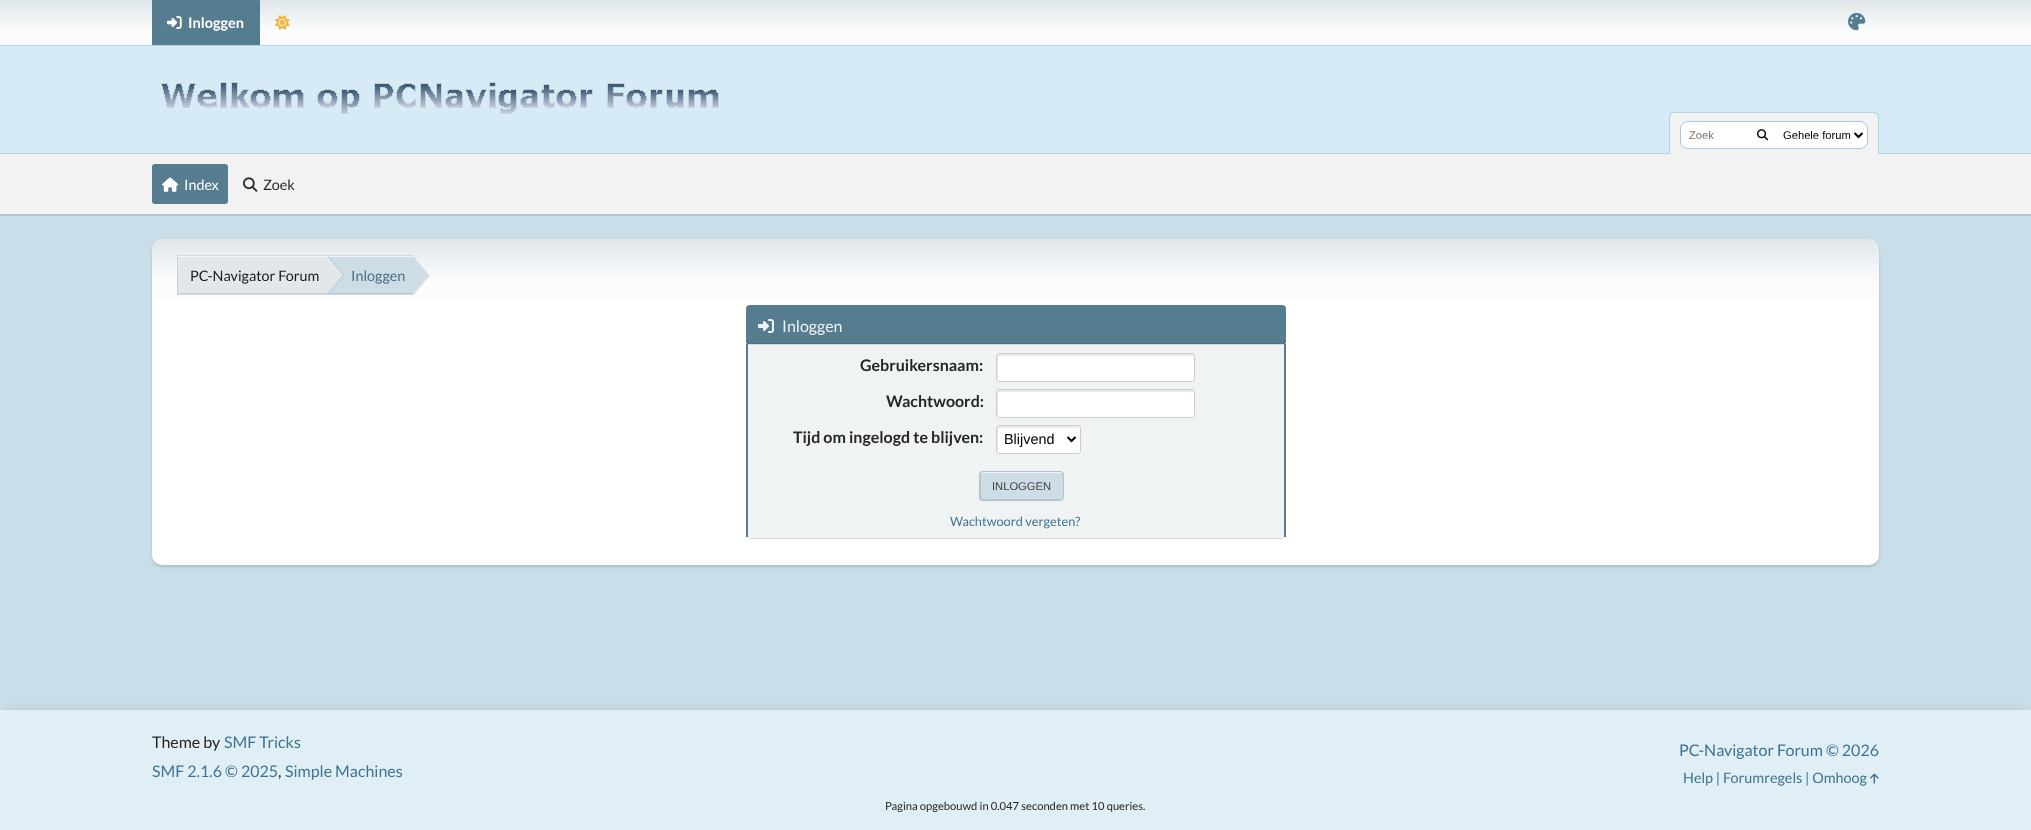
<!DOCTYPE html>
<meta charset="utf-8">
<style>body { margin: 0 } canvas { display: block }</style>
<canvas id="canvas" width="2031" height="830"></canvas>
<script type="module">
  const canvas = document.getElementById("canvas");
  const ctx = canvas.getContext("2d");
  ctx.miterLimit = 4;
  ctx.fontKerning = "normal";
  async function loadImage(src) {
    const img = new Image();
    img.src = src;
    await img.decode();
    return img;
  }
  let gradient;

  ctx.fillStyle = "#c9dee8";
  ctx.fillRect(0, 0, 2031, 830);
  gradient = ctx.createLinearGradient(1016, 0, 1016, 45);
  gradient.addColorStop(0, "#e0e7eb");
  gradient.addColorStop(0.7, "#fcfcfc");
  ctx.fillStyle = gradient;
  ctx.fillRect(0, 0, 2031, 45);
  ctx.fillStyle = "#b5d4e3";
  ctx.fillRect(0, 45, 2031, 1);
  ctx.fillStyle = "#567c8f";
  ctx.fillRect(152, 0, 108, 45);
  ctx.drawImage(await loadImage("img1.png"), 167, 16, 15, 13);
  ctx.font = "bold 14.5px Lato";
  ctx.fillStyle = "#ffffff";
  ctx.fillText("Inloggen", 188, 28);
  ctx.drawImage(await loadImage("img2.png"), 275, 15, 15, 15);
  ctx.drawImage(await loadImage("img3.png"), 1848, 12, 18, 19);
  ctx.fillStyle = "#d6ebf5";
  ctx.fillRect(0, 46, 2031, 107);
  ctx.fillStyle = "#b5d4e3";
  ctx.fillRect(0, 153, 2031, 1);
  ctx.drawImage(await loadImage("img4.png"), 161, 82, 558, 32);
  ctx.fillStyle = "rgba(0, 0, 0, 0.1)";
  ctx.filter = "blur(0.5px)";
  ctx.beginPath();
  ctx.rect(0, 156, 2031, 60);
  ctx.fill();
  ctx.filter = "none";
  ctx.fillStyle = "#f2f2f2";
  ctx.beginPath();
  ctx.roundRect(1670, 113, 208, 41, [4, 4, 0, 0]);
  ctx.fill();
  ctx.fillStyle = "#b5d4e3";
  ctx.beginPath();
  ctx.moveTo(1674, 112);
  ctx.lineTo(1874, 112);
  ctx.bezierCurveTo(1877, 112, 1879, 114, 1879, 117);
  ctx.lineTo(1879, 154);
  ctx.lineTo(1669, 154);
  ctx.lineTo(1669, 117);
  ctx.bezierCurveTo(1669, 114, 1671, 112, 1674, 112);
  ctx.closePath();
  ctx.moveTo(1674, 113);
  ctx.lineTo(1874, 113);
  ctx.bezierCurveTo(1876, 113, 1878, 115, 1878, 117);
  ctx.lineTo(1878, 154);
  ctx.lineTo(1670, 154);
  ctx.lineTo(1670, 117);
  ctx.bezierCurveTo(1670, 115, 1672, 113, 1674, 113);
  ctx.closePath();
  ctx.fill("evenodd");
  ctx.fillStyle = "#ffffff";
  ctx.beginPath();
  ctx.roundRect(1681, 122, 66, 26, [7, 0, 0, 7]);
  ctx.fill();
  ctx.fillStyle = "#9fcadf";
  ctx.beginPath();
  ctx.moveTo(1688, 121);
  ctx.lineTo(1747, 121);
  ctx.lineTo(1747, 149);
  ctx.lineTo(1688, 149);
  ctx.bezierCurveTo(1684, 149, 1680, 145, 1680, 141);
  ctx.lineTo(1680, 129);
  ctx.bezierCurveTo(1680, 125, 1684, 121, 1688, 121);
  ctx.closePath();
  ctx.moveTo(1688, 122);
  ctx.lineTo(1747, 122);
  ctx.lineTo(1747, 148);
  ctx.lineTo(1688, 148);
  ctx.bezierCurveTo(1684, 148, 1681, 145, 1681, 141);
  ctx.lineTo(1681, 129);
  ctx.bezierCurveTo(1681, 125, 1684, 122, 1688, 122);
  ctx.closePath();
  ctx.fill("evenodd");
  ctx.font = "11.2px Liberation Sans";
  ctx.fillStyle = "#757575";
  ctx.fillText("Zoek", 1689, 139);
  ctx.fillStyle = "#ffffff";
  ctx.fillRect(1747, 122, 32, 26);
  ctx.fillStyle = "#9fcadf";
  ctx.fillRect(1747, 121, 32, 1);
  ctx.fillRect(1747, 148, 32, 1);
  ctx.drawImage(await loadImage("img5.png"), 1757, 129, 12, 12);
  ctx.fillStyle = "#ffffff";
  ctx.beginPath();
  ctx.roundRect(1779, 122, 88, 26, [0, 7, 7, 0]);
  ctx.fill();
  ctx.fillStyle = "#9fcadf";
  ctx.beginPath();
  ctx.moveTo(1779, 121);
  ctx.lineTo(1860, 121);
  ctx.bezierCurveTo(1864, 121, 1868, 125, 1868, 129);
  ctx.lineTo(1868, 141);
  ctx.bezierCurveTo(1868, 145, 1864, 149, 1860, 149);
  ctx.lineTo(1779, 149);
  ctx.closePath();
  ctx.moveTo(1779, 122);
  ctx.lineTo(1860, 122);
  ctx.bezierCurveTo(1864, 122, 1867, 125, 1867, 129);
  ctx.lineTo(1867, 141);
  ctx.bezierCurveTo(1867, 145, 1864, 148, 1860, 148);
  ctx.lineTo(1779, 148);
  ctx.closePath();
  ctx.fill("evenodd");
  ctx.beginPath();
  ctx.moveTo(1854.5, 133);
  ctx.lineTo(1858.5, 137);
  ctx.lineTo(1862.5, 133);
  ctx.strokeStyle = "#000000";
  ctx.lineWidth = 2;
  ctx.stroke();
  ctx.fillStyle = "#000000";
  ctx.fillText("Gehele forum", 1783, 139);
  ctx.fillStyle = "#f2f2f2";
  ctx.fillRect(0, 154, 2031, 60);
  ctx.fillStyle = "#567c8f";
  ctx.beginPath();
  ctx.roundRect(152, 164, 76, 40, 3);
  ctx.fill();
  ctx.drawImage(await loadImage("img6.png"), 162, 177, 17, 15);
  ctx.font = "14.4px Lato";
  ctx.fillStyle = "#ffffff";
  ctx.fillText("Index", 184, 190);
  ctx.drawImage(await loadImage("img7.png"), 243, 177, 15, 15);
  ctx.fillStyle = "#262626";
  ctx.fillText("Zoek", 263, 190);
  ctx.fillStyle = "rgba(0, 0, 0, 0.14)";
  ctx.filter = "blur(1.5px)";
  ctx.beginPath();
  ctx.roundRect(152, 241, 1727, 326, 10);
  ctx.fill();
  ctx.filter = "none";
  gradient = ctx.createLinearGradient(1016, 239, 1016, 299);
  gradient.addColorStop(0, "#e0e7eb");
  gradient.addColorStop(0.7, "#fcfcfc");
  ctx.fillStyle = gradient;
  ctx.beginPath();
  ctx.roundRect(152, 239, 1727, 60, [10, 10, 0, 0]);
  ctx.fill();
  ctx.fillStyle = "#e2e7e9";
  ctx.fillRect(177, 257, 151, 37);
  ctx.fillStyle = "#f6f8f8";
  ctx.fillRect(177, 256, 151, 1);
  ctx.save();
  ctx.beginPath();
  ctx.rect(177, 256, 151, 38);
  ctx.clip();
  ctx.fillStyle = "rgba(0, 0, 0, 0.1)";
  ctx.beginPath();
  ctx.moveTo(179, 254);
  ctx.lineTo(427, 254);
  ctx.lineTo(427, 296);
  ctx.lineTo(179, 296);
  ctx.bezierCurveTo(178, 296, 177, 295, 177, 294);
  ctx.lineTo(177, 256);
  ctx.bezierCurveTo(177, 255, 178, 254, 179, 254);
  ctx.closePath();
  ctx.moveTo(178, 255);
  ctx.lineTo(178, 293);
  ctx.lineTo(329, 293);
  ctx.lineTo(329, 255);
  ctx.closePath();
  ctx.fill("evenodd");
  ctx.restore();
  ctx.fillStyle = "#d3dbde";
  ctx.fillRect(177, 255, 236, 1);
  ctx.fillRect(177, 294, 236, 1);
  ctx.fillStyle = "#cddde5";
  ctx.fillRect(328, 257, 85, 37);
  ctx.fillStyle = "#f0f5f7";
  ctx.fillRect(328, 256, 85, 1);
  ctx.save();
  ctx.beginPath();
  ctx.rect(328, 256, 85, 38);
  ctx.clip();
  ctx.fillStyle = "rgba(0, 0, 0, 0.1)";
  ctx.beginPath();
  ctx.moveTo(229, 296);
  ctx.lineTo(229, 254);
  ctx.lineTo(512, 254);
  ctx.lineTo(512, 296);
  ctx.closePath();
  ctx.moveTo(329, 255);
  ctx.lineTo(329, 293);
  ctx.lineTo(414, 293);
  ctx.lineTo(414, 255);
  ctx.closePath();
  ctx.fill("evenodd");
  ctx.restore();
  ctx.fillStyle = "#b9c7ce";
  ctx.beginPath();
  ctx.moveTo(329, 293);
  ctx.lineTo(329, 257);
  ctx.lineTo(344, 275);
  ctx.closePath();
  ctx.fill();
  ctx.fillStyle = "#e2e7e9";
  ctx.beginPath();
  ctx.moveTo(328, 293);
  ctx.lineTo(328, 257);
  ctx.lineTo(343, 275);
  ctx.closePath();
  ctx.fill();
  ctx.fillStyle = "#1a1a1a";
  ctx.fillText("PC-Navigator Forum", 190, 281);
  ctx.fillStyle = "rgba(0, 0, 0, 0.1)";
  ctx.beginPath();
  ctx.moveTo(413, 296);
  ctx.lineTo(413, 256);
  ctx.lineTo(430, 276);
  ctx.closePath();
  ctx.fill();
  ctx.fillStyle = "#4d6f80";
  ctx.fillText("Inloggen", 351, 281);
  ctx.fillStyle = "#cddde5";
  ctx.beginPath();
  ctx.moveTo(413, 293);
  ctx.lineTo(413, 257);
  ctx.lineTo(428, 275);
  ctx.closePath();
  ctx.fill();
  ctx.fillStyle = "#ffffff";
  ctx.beginPath();
  ctx.roundRect(152, 299, 1727, 266, [0, 0, 10, 10]);
  ctx.fill();
  ctx.fillStyle = "#567c8f";
  ctx.beginPath();
  ctx.roundRect(746, 305, 540, 40, 4);
  ctx.fill();
  ctx.fillStyle = "rgba(0, 0, 0, 0.1)";
  ctx.beginPath();
  ctx.moveTo(746, 339);
  ctx.lineTo(746, 341);
  ctx.bezierCurveTo(746, 343, 748, 345, 750, 345);
  ctx.lineTo(1282, 345);
  ctx.bezierCurveTo(1284, 345, 1286, 343, 1286, 341);
  ctx.lineTo(1286, 339);
  ctx.bezierCurveTo(1286, 341, 1284, 343, 1282, 343);
  ctx.lineTo(750, 343);
  ctx.bezierCurveTo(748, 343, 746, 341, 746, 339);
  ctx.closePath();
  ctx.fill();
  ctx.drawImage(await loadImage("img8.png"), 758, 319, 16, 14);
  ctx.font = "16px Lato";
  ctx.fillStyle = "#edf4f7";
  ctx.fillText("Inloggen", 782, 332);
  ctx.fillStyle = "#f0f3f4";
  ctx.beginPath();
  ctx.moveTo(748, 344);
  ctx.lineTo(1284, 344);
  ctx.lineTo(1284, 535);
  ctx.bezierCurveTo(1284, 537, 1283, 539, 1282, 539);
  ctx.lineTo(750, 539);
  ctx.bezierCurveTo(749, 539, 748, 537, 748, 535);
  ctx.closePath();
  ctx.fill();
  ctx.fillStyle = "rgba(0, 0, 0, 0.1)";
  ctx.beginPath();
  ctx.moveTo(748, 534);
  ctx.lineTo(748, 537);
  ctx.lineTo(750, 539);
  ctx.lineTo(1282, 539);
  ctx.bezierCurveTo(1284, 539, 1284, 535, 1284, 534);
  ctx.bezierCurveTo(1284, 536, 1283, 538, 1282, 538);
  ctx.lineTo(750, 538);
  ctx.bezierCurveTo(749, 538, 748, 536, 748, 534);
  ctx.closePath();
  ctx.fill();
  ctx.fillStyle = "#d8dbdc";
  ctx.fillRect(748, 344, 536, 1);
  ctx.fillStyle = "#567c8f";
  ctx.fillRect(1284, 344, 2, 193);
  ctx.fillRect(746, 344, 2, 193);
  ctx.font = "bold 16px Lato";
  ctx.fillStyle = "#262626";
  ctx.fillText("Gebruikersnaam:", 860, 371);
  ctx.fillStyle = "#ffffff";
  ctx.beginPath();
  ctx.roundRect(996, 353, 199, 29, 3);
  ctx.fill();
  ctx.fillStyle = "#e9e9e9";
  ctx.beginPath();
  ctx.moveTo(1000, 356);
  ctx.lineTo(1194, 356);
  ctx.bezierCurveTo(1194, 355, 1193, 354, 1192, 354);
  ctx.lineTo(999, 354);
  ctx.bezierCurveTo(998, 354, 997, 355, 997, 356);
  ctx.bezierCurveTo(997, 359, 996, 380, 998, 381);
  ctx.lineTo(998, 358);
  ctx.bezierCurveTo(998, 357, 999, 356, 1000, 356);
  ctx.closePath();
  ctx.fill();
  ctx.beginPath();
  ctx.roundRect(996.5, 353.5, 198, 28, 2.5);
  ctx.strokeStyle = "#cccccc";
  ctx.lineWidth = 1;
  ctx.stroke();
  ctx.fillStyle = "#262626";
  ctx.fillText("Wachtwoord:", 886, 407);
  ctx.fillStyle = "#ffffff";
  ctx.beginPath();
  ctx.roundRect(996, 389, 199, 29, 3);
  ctx.fill();
  ctx.fillStyle = "#e9e9e9";
  ctx.beginPath();
  ctx.moveTo(1000, 392);
  ctx.lineTo(1194, 392);
  ctx.bezierCurveTo(1194, 391, 1193, 390, 1192, 390);
  ctx.lineTo(999, 390);
  ctx.bezierCurveTo(998, 390, 997, 391, 997, 392);
  ctx.bezierCurveTo(997, 395, 996, 416, 998, 417);
  ctx.lineTo(998, 394);
  ctx.bezierCurveTo(998, 393, 999, 392, 1000, 392);
  ctx.closePath();
  ctx.fill();
  ctx.beginPath();
  ctx.roundRect(996.5, 389.5, 198, 28, 2.5);
  ctx.stroke();
  ctx.fillStyle = "#262626";
  ctx.fillText("Tijd om ingelogd te blijven:", 793, 443);
  ctx.fillStyle = "#ffffff";
  ctx.beginPath();
  ctx.roundRect(996, 425, 85, 29, 3);
  ctx.fill();
  ctx.fillStyle = "#e9e9e9";
  ctx.beginPath();
  ctx.moveTo(1000, 428);
  ctx.lineTo(1080, 428);
  ctx.lineTo(1079, 427);
  ctx.bezierCurveTo(1078, 425, 1043, 426, 1038, 426);
  ctx.lineTo(1012, 426);
  ctx.bezierCurveTo(994, 426, 997, 423, 997, 440);
  ctx.bezierCurveTo(997, 442, 996, 451, 998, 453);
  ctx.lineTo(998, 430);
  ctx.bezierCurveTo(998, 429, 999, 428, 1000, 428);
  ctx.closePath();
  ctx.fill();
  ctx.beginPath();
  ctx.roundRect(996.5, 425.5, 84, 28, 2.5);
  ctx.stroke();
  ctx.beginPath();
  ctx.moveTo(1067.5, 437);
  ctx.lineTo(1071.5, 441);
  ctx.lineTo(1075.5, 437);
  ctx.strokeStyle = "#000000";
  ctx.lineWidth = 2;
  ctx.stroke();
  ctx.font = "14.4px Liberation Sans";
  ctx.fillStyle = "#000000";
  ctx.fillText("Blijvend", 1004, 444);
  ctx.fillStyle = "#cddde5";
  ctx.beginPath();
  ctx.roundRect(979, 471, 85, 30, 4);
  ctx.fill();
  ctx.fillStyle = "#f0f5f7";
  ctx.beginPath();
  ctx.moveTo(983, 473);
  ctx.lineTo(1060, 473);
  ctx.bezierCurveTo(1062, 473, 1063, 474, 1063, 476);
  ctx.bezierCurveTo(1063, 469, 1051, 472, 1047, 472);
  ctx.lineTo(996, 472);
  ctx.bezierCurveTo(992, 472, 980, 469, 980, 476);
  ctx.bezierCurveTo(980, 474, 981, 473, 983, 473);
  ctx.closePath();
  ctx.fill();
  ctx.fillStyle = "#b9c7ce";
  ctx.beginPath();
  ctx.moveTo(981, 473);
  ctx.lineTo(981, 489);
  ctx.bezierCurveTo(981, 502, 981, 499, 997, 499);
  ctx.lineTo(1062, 499);
  ctx.lineTo(1060, 500);
  ctx.lineTo(996, 500);
  ctx.bezierCurveTo(977, 500, 980, 503, 980, 486);
  ctx.bezierCurveTo(980, 483, 979, 474, 981, 473);
  ctx.closePath();
  ctx.fill();
  ctx.beginPath();
  ctx.roundRect(979.5, 471.5, 84, 29, 3.5);
  ctx.strokeStyle = "#b6c2c9";
  ctx.lineWidth = 1;
  ctx.stroke();
  ctx.font = "11.2px Liberation Sans";
  ctx.fillStyle = "#404040";
  ctx.fillText("INLOGGEN", 992, 490);
  ctx.font = "12.75px Lato";
  ctx.fillStyle = "#3d748f";
  ctx.fillText("Wachtwoord vergeten?", 950, 526);
  ctx.fillStyle = "rgba(0, 0, 0, 0.1)";
  ctx.filter = "blur(4px)";
  ctx.beginPath();
  ctx.rect(5, 710, 2021, 110);
  ctx.fill();
  ctx.filter = "none";
  ctx.fillStyle = "#e0eef5";
  ctx.fillRect(0, 710, 2031, 120);
  ctx.font = "16px Lato";
  ctx.fillStyle = "#262626";
  ctx.fillText("Theme by", 152, 748);
  ctx.fillStyle = "#3d748f";
  ctx.fillText("SMF Tricks", 224, 748);
  ctx.fillText("SMF 2.1.6 © 2025", 152, 777);
  ctx.fillStyle = "#262626";
  ctx.fillText(",", 278, 777);
  ctx.fillStyle = "#3d748f";
  ctx.fillText("Simple Machines", 285, 777);
  ctx.fillText("PC-Navigator Forum © 2026", 1679, 756);
  ctx.font = "14.4px Lato";
  ctx.fillText("Help | Forumregels | Omhoog", 1683, 783);
  ctx.drawImage(await loadImage("img9.png"), 1870, 773, 9, 11);
  ctx.font = "11.2px Lato";
  ctx.fillStyle = "#262626";
  ctx.fillText("Pagina opgebouwd in 0.047 seconden met 10 queries.", 885, 810);
</script>
